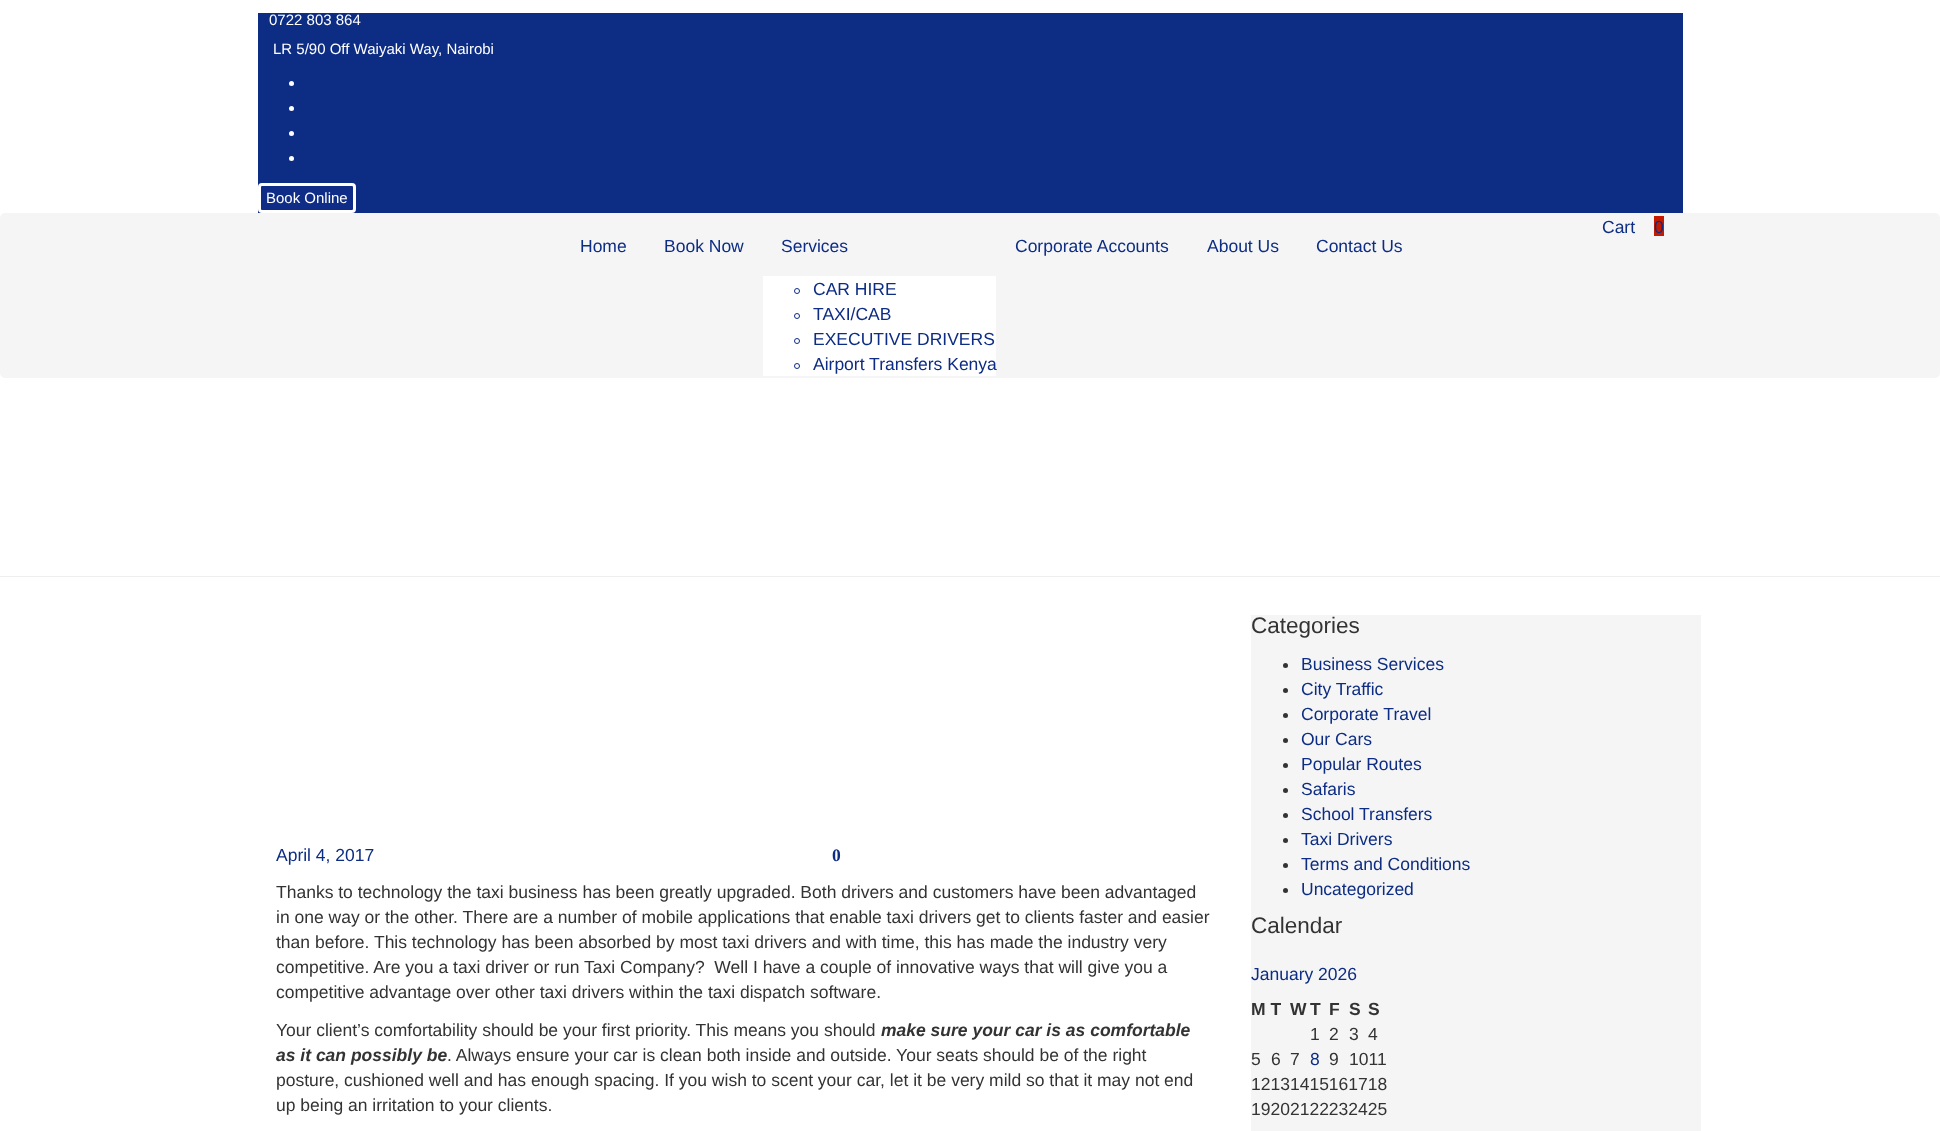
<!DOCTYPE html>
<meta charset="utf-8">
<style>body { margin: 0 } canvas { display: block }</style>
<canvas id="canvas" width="1940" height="1131"></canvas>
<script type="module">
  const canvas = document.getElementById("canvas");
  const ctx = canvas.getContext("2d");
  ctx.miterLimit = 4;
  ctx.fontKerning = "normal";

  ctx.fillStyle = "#ffffff";
  ctx.fillRect(0, 0, 1940, 1131);
  ctx.fillStyle = "#0d2d84";
  ctx.fillRect(258, 13, 1425, 200);
  ctx.font = "15px Liberation Sans";
  ctx.fillStyle = "#ffffff";
  ctx.fillText("0722 803 864", 269, 25);
  ctx.fillText("LR 5/90 Off Waiyaki Way, Nairobi", 273, 54);
  ctx.beginPath();
  ctx.arc(291.5, 83.5, 2.5, 0, Math.PI * 2);
  ctx.fill();
  ctx.beginPath();
  ctx.arc(291.5, 108.5, 2.5, 0, Math.PI * 2);
  ctx.fill();
  ctx.beginPath();
  ctx.arc(291.5, 133.5, 2.5, 0, Math.PI * 2);
  ctx.fill();
  ctx.beginPath();
  ctx.arc(291.5, 158.5, 2.5, 0, Math.PI * 2);
  ctx.fill();
  ctx.fillStyle = "#0f2d87";
  ctx.beginPath();
  ctx.roundRect(259.5, 184.5, 95, 27, 2.5);
  ctx.fill();
  ctx.strokeStyle = "#ffffff";
  ctx.lineWidth = 3;
  ctx.stroke();
  ctx.fillStyle = "#ffffff";
  ctx.fillText("Book Online", 266, 203);
  ctx.fillStyle = "#f5f5f5";
  ctx.beginPath();
  ctx.roundRect(0, 213, 1940, 165, 5);
  ctx.fill();
  ctx.font = "17.5px Liberation Sans";
  ctx.fillStyle = "#0d2d84";
  ctx.fillText("Cart", 1602, 233);
  ctx.fillStyle = "#c41b00";
  ctx.fillRect(1654, 216, 10, 20);
  ctx.fillStyle = "#0d2d84";
  ctx.fillText("0", 1654, 233);
  ctx.fillText("Home", 580, 252);
  ctx.fillText("Book Now", 664, 252);
  ctx.fillText("Services", 781, 252);
  ctx.fillStyle = "#ffffff";
  ctx.fillRect(763, 276, 233, 100);
  ctx.beginPath();
  ctx.arc(797, 291, 2.5, 0, Math.PI * 2);
  ctx.strokeStyle = "#0d2d84";
  ctx.lineWidth = 1;
  ctx.stroke();
  ctx.fillStyle = "#0d2d84";
  ctx.fillText("CAR HIRE", 813, 295);
  ctx.beginPath();
  ctx.arc(797, 316, 2.5, 0, Math.PI * 2);
  ctx.stroke();
  ctx.fillText("TAXI/CAB", 813, 320);
  ctx.beginPath();
  ctx.arc(797, 341, 2.5, 0, Math.PI * 2);
  ctx.stroke();
  ctx.fillText("EXECUTIVE DRIVERS", 813, 345);
  ctx.beginPath();
  ctx.arc(797, 366, 2.5, 0, Math.PI * 2);
  ctx.stroke();
  ctx.fillText("Airport Transfers Kenya", 813, 370);
  ctx.fillText("Corporate Accounts", 1015, 252);
  ctx.fillText("About Us", 1207, 252);
  ctx.fillText("Contact Us", 1316, 252);
  ctx.fillStyle = "#eeeeee";
  ctx.fillRect(0, 576, 1940, 1);
  ctx.fillStyle = "#0d2d84";
  ctx.fillText("April 4, 2017", 276, 861);
  ctx.font = "bold 17.5px Liberation Serif";
  ctx.fillText("0", 832, 861);
  ctx.font = "17.5px Liberation Sans";
  ctx.fillStyle = "#333333";
  ctx.fillText("Thanks to technology the taxi business has been greatly upgraded. Both drivers and customers have been advantaged", 276, 898);
  ctx.fillText("in one way or the other. There are a number of mobile applications that enable taxi drivers get to clients faster and easier", 276, 923);
  ctx.fillText("than before. This technology has been absorbed by most taxi drivers and with time, this has made the industry very", 276, 948);
  ctx.fillText("competitive. Are you a taxi driver or run Taxi Company?  Well I have a couple of innovative ways that will give you a", 276, 973);
  ctx.fillText("competitive advantage over other taxi drivers within the taxi dispatch software.", 276, 998);
  ctx.fillText("Your client’s comfortability should be your first priority. This means you should", 276, 1036);
  ctx.font = "italic bold 17.5px Liberation Sans";
  ctx.fillText("make sure your car is as comfortable", 881, 1036);
  ctx.fillText("as it can possibly be", 276, 1061);
  ctx.font = "17.5px Liberation Sans";
  ctx.fillText(". Always ensure your car is clean both inside and outside. Your seats should be of the right", 447, 1061);
  ctx.fillText("posture, cushioned well and has enough spacing. If you wish to scent your car, let it be very mild so that it may not end", 276, 1086);
  ctx.fillText("up being an irritation to your clients.", 276, 1111);
  ctx.fillStyle = "#f5f5f5";
  ctx.fillRect(1251, 615, 450, 516);
  ctx.font = "22.5px Liberation Sans";
  ctx.fillStyle = "#333333";
  ctx.fillText("Categories", 1251, 633);
  ctx.beginPath();
  ctx.arc(1285.5, 665.5, 2.5, 0, Math.PI * 2);
  ctx.fill();
  ctx.font = "17.5px Liberation Sans";
  ctx.fillStyle = "#0d2d84";
  ctx.fillText("Business Services", 1301, 670);
  ctx.fillStyle = "#333333";
  ctx.beginPath();
  ctx.arc(1285.5, 690.5, 2.5, 0, Math.PI * 2);
  ctx.fill();
  ctx.fillStyle = "#0d2d84";
  ctx.fillText("City Traffic", 1301, 695);
  ctx.fillStyle = "#333333";
  ctx.beginPath();
  ctx.arc(1285.5, 715.5, 2.5, 0, Math.PI * 2);
  ctx.fill();
  ctx.fillStyle = "#0d2d84";
  ctx.fillText("Corporate Travel", 1301, 720);
  ctx.fillStyle = "#333333";
  ctx.beginPath();
  ctx.arc(1285.5, 740.5, 2.5, 0, Math.PI * 2);
  ctx.fill();
  ctx.fillStyle = "#0d2d84";
  ctx.fillText("Our Cars", 1301, 745);
  ctx.fillStyle = "#333333";
  ctx.beginPath();
  ctx.arc(1285.5, 765.5, 2.5, 0, Math.PI * 2);
  ctx.fill();
  ctx.fillStyle = "#0d2d84";
  ctx.fillText("Popular Routes", 1301, 770);
  ctx.fillStyle = "#333333";
  ctx.beginPath();
  ctx.arc(1285.5, 790.5, 2.5, 0, Math.PI * 2);
  ctx.fill();
  ctx.fillStyle = "#0d2d84";
  ctx.fillText("Safaris", 1301, 795);
  ctx.fillStyle = "#333333";
  ctx.beginPath();
  ctx.arc(1285.5, 815.5, 2.5, 0, Math.PI * 2);
  ctx.fill();
  ctx.fillStyle = "#0d2d84";
  ctx.fillText("School Transfers", 1301, 820);
  ctx.fillStyle = "#333333";
  ctx.beginPath();
  ctx.arc(1285.5, 840.5, 2.5, 0, Math.PI * 2);
  ctx.fill();
  ctx.fillStyle = "#0d2d84";
  ctx.fillText("Taxi Drivers", 1301, 845);
  ctx.fillStyle = "#333333";
  ctx.beginPath();
  ctx.arc(1285.5, 865.5, 2.5, 0, Math.PI * 2);
  ctx.fill();
  ctx.fillStyle = "#0d2d84";
  ctx.fillText("Terms and Conditions", 1301, 870);
  ctx.fillStyle = "#333333";
  ctx.beginPath();
  ctx.arc(1285.5, 890.5, 2.5, 0, Math.PI * 2);
  ctx.fill();
  ctx.fillStyle = "#0d2d84";
  ctx.fillText("Uncategorized", 1301, 895);
  ctx.font = "22.5px Liberation Sans";
  ctx.fillStyle = "#333333";
  ctx.fillText("Calendar", 1251, 933);
  ctx.font = "17.5px Liberation Sans";
  ctx.fillStyle = "#0d2d84";
  ctx.fillText("January 2026", 1251, 980);
  ctx.font = "bold 17.5px Liberation Sans";
  ctx.fillStyle = "#333333";
  ctx.fillText("M T", 1251, 1015);
  ctx.fillText("W", 1290, 1015);
  ctx.fillText("T", 1310, 1015);
  ctx.fillText("F", 1329, 1015);
  ctx.fillText("S", 1349, 1015);
  ctx.fillText("S", 1368, 1015);
  ctx.font = "17.5px Liberation Sans";
  ctx.fillText("1", 1310, 1040);
  ctx.fillText("2", 1329, 1040);
  ctx.fillText("3", 1349, 1040);
  ctx.fillText("4", 1368, 1040);
  ctx.fillText("5", 1251, 1065);
  ctx.fillText("6", 1271, 1065);
  ctx.fillText("7", 1290, 1065);
  ctx.fillStyle = "#0d2d84";
  ctx.fillText("8", 1310, 1065);
  ctx.fillStyle = "#333333";
  ctx.fillText("9", 1329, 1065);
  ctx.fillText("1011", 1349, 1065);
  ctx.fillText("12131415161718", 1251, 1090);
  ctx.fillText("19202122232425", 1251, 1115);
</script>
